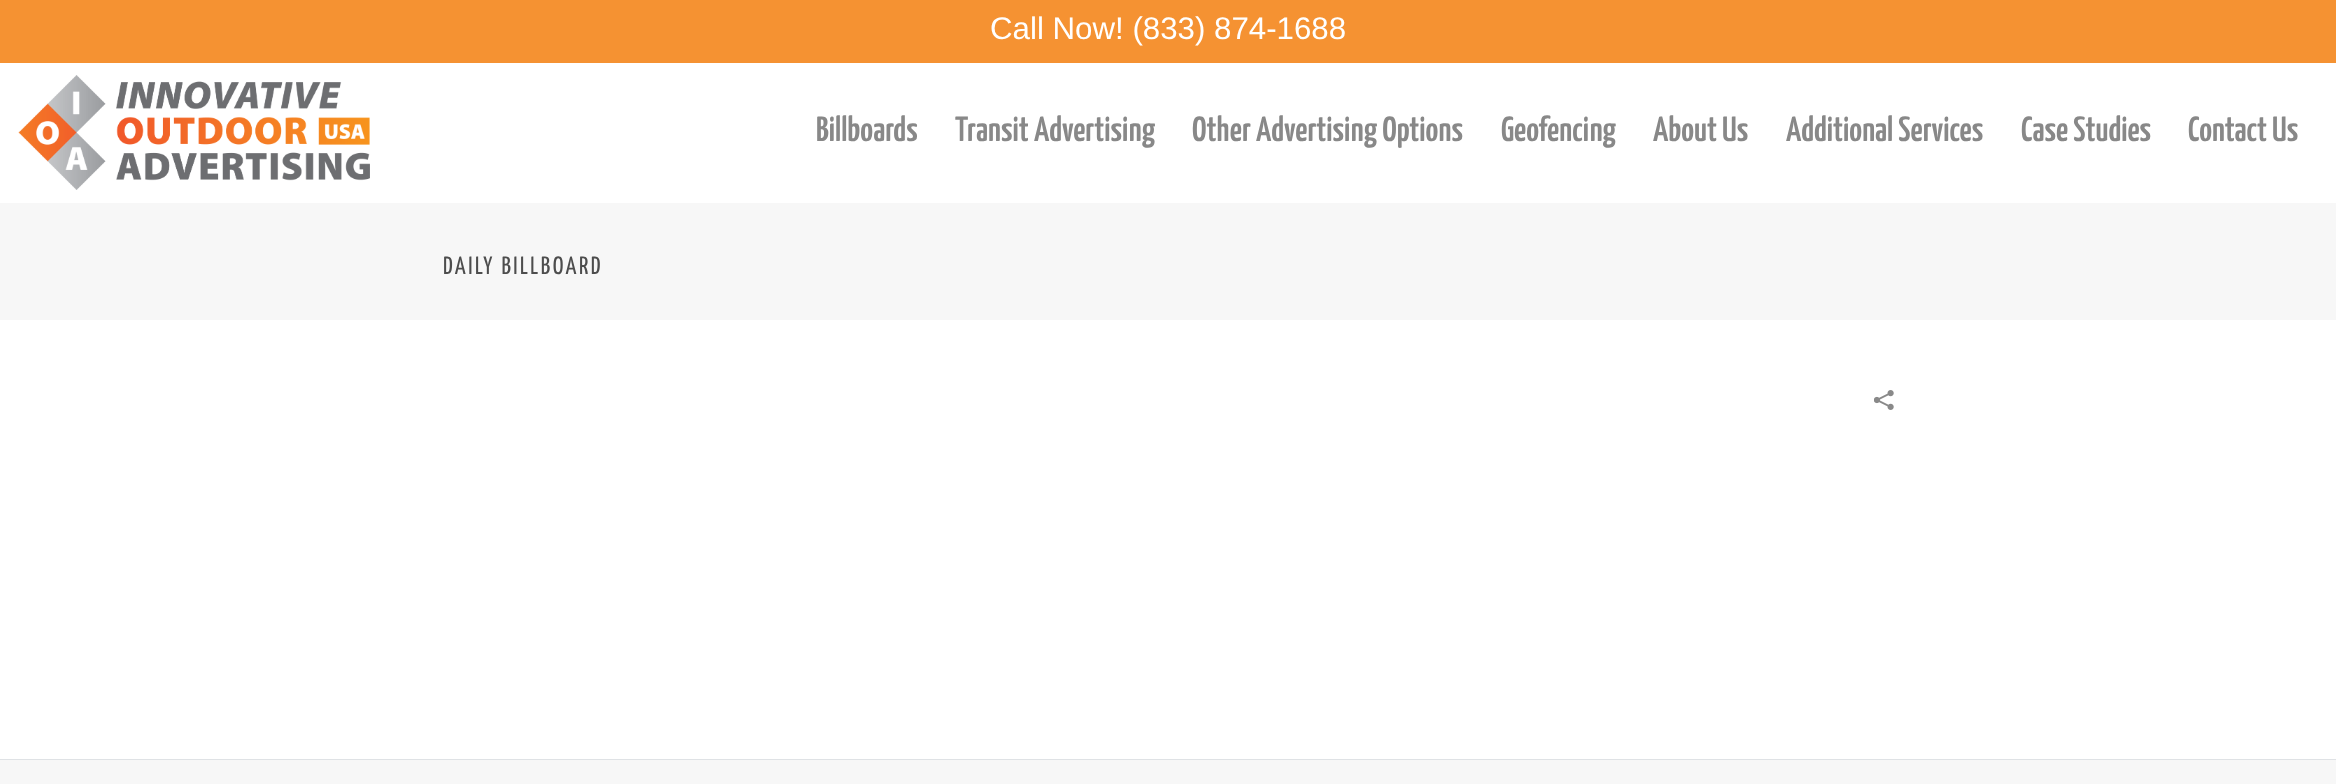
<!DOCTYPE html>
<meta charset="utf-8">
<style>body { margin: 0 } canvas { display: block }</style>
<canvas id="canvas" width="2336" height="784"></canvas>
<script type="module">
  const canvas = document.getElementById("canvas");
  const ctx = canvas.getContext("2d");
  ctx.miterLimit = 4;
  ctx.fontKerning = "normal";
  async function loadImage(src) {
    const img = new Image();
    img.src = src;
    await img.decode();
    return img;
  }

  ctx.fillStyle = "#ffffff";
  ctx.fillRect(0, 0, 2336, 784);
  ctx.fillStyle = "#f59232";
  ctx.fillRect(0, 0, 2336, 63);
  ctx.font = "31.25px Liberation Sans";
  ctx.fillStyle = "#ffffff";
  ctx.fillText("Call Now! (833) 874-1688", 990, 39);
  ctx.drawImage(await loadImage("img1.png"), 18, 75, 352, 115);
  ctx.font = "600 35px Yanone Kaffeesatz";
  ctx.fillStyle = "#888888";
  ctx.fillText("Billboards", 816, 141);
  ctx.fillText("Transit Advertising", 955, 141);
  ctx.fillText("Other Advertising Options", 1192, 141);
  ctx.fillText("Geofencing", 1501, 141);
  ctx.fillText("About Us", 1653, 141);
  ctx.fillText("Additional Services", 1786, 141);
  ctx.fillText("Case Studies", 2021, 141);
  ctx.fillText("Contact Us", 2188, 141);
  ctx.fillStyle = "#f7f7f7";
  ctx.fillRect(0, 203, 2336, 117);
  ctx.letterSpacing = "2.5px";
  ctx.font = "25px Yanone Kaffeesatz";
  ctx.fillStyle = "#4d4d4d";
  ctx.fillText("DAILY BILLBOARD", 443, 274);
  ctx.drawImage(await loadImage("img2.png"), 1874, 390, 20, 20);
  ctx.fillStyle = "#f7f7f7";
  ctx.fillRect(0, 760, 2336, 24);
  ctx.fillStyle = "#dfe2e5";
  ctx.fillRect(0, 759, 2336, 1);
</script>
